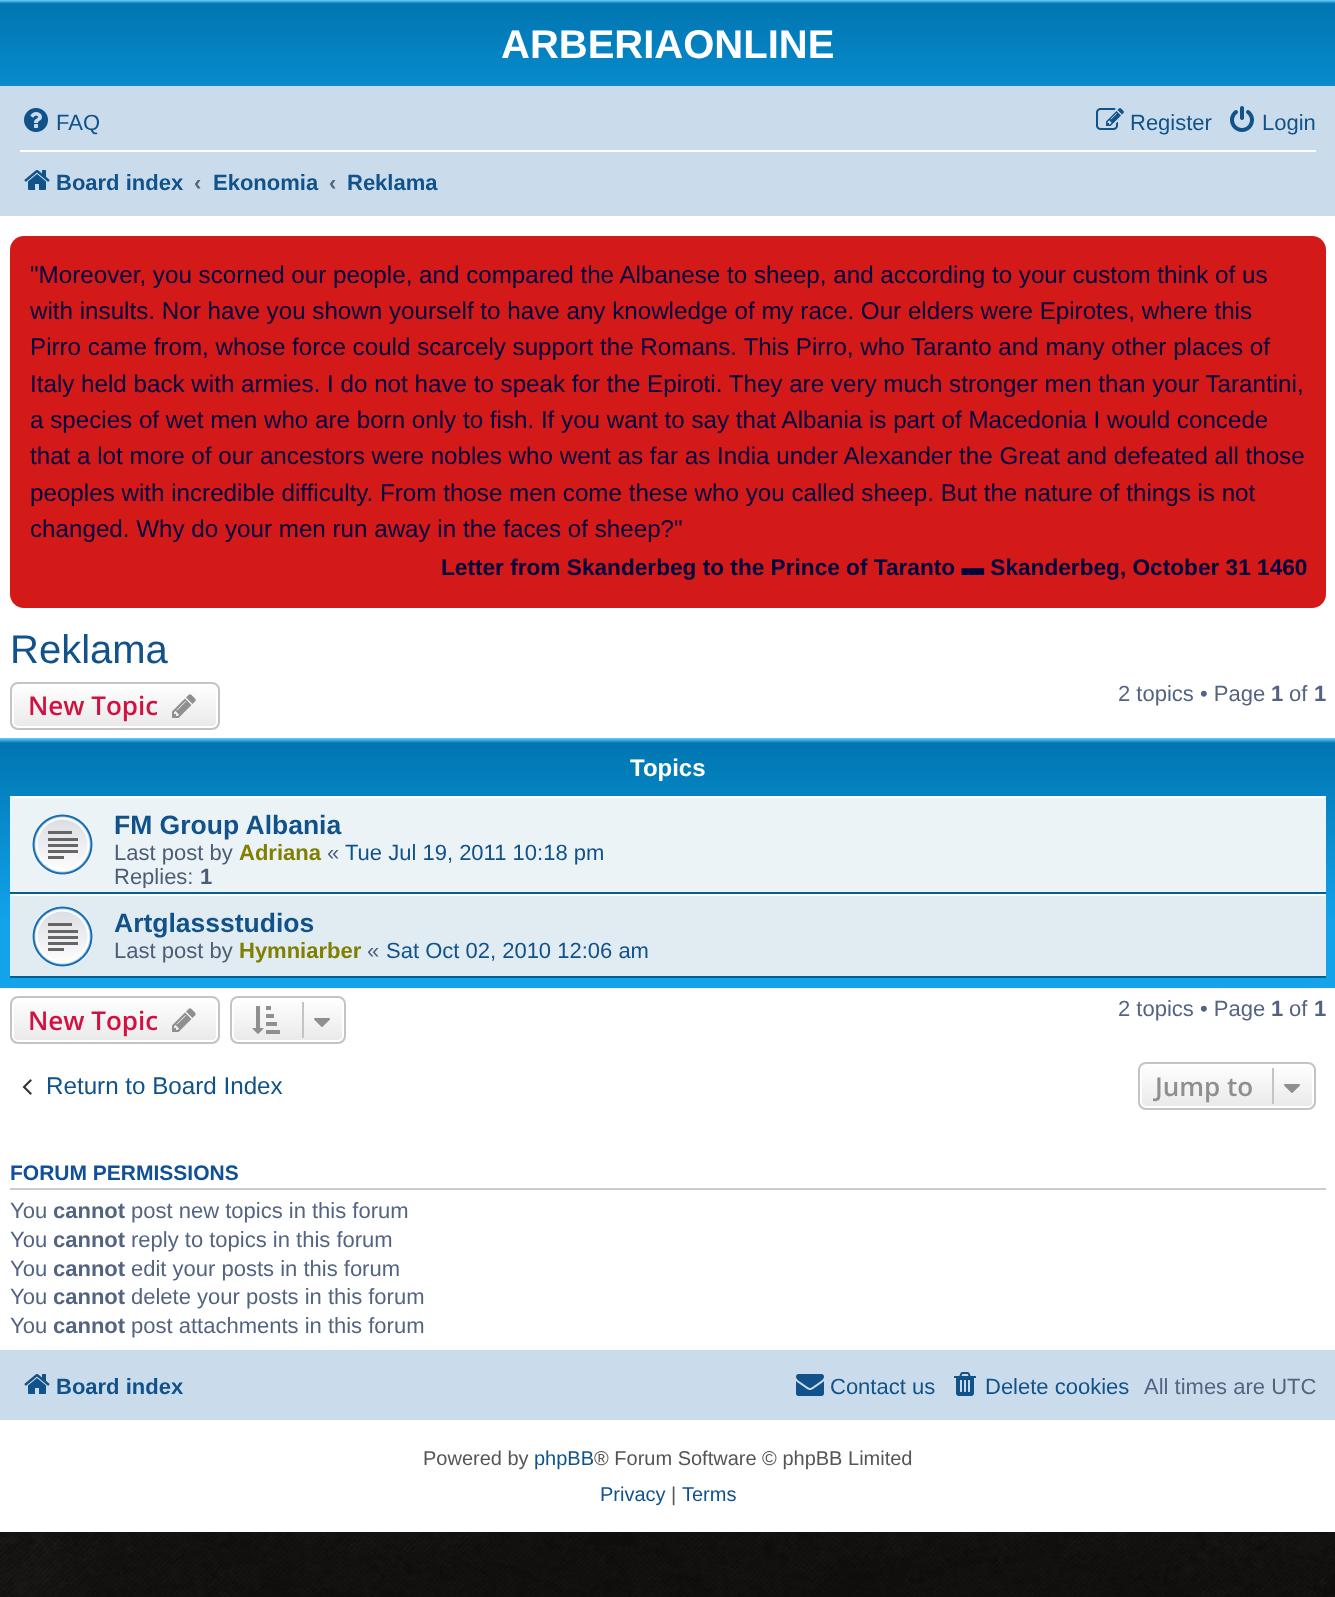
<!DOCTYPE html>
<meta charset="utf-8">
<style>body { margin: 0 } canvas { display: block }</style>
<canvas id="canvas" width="1335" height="1597"></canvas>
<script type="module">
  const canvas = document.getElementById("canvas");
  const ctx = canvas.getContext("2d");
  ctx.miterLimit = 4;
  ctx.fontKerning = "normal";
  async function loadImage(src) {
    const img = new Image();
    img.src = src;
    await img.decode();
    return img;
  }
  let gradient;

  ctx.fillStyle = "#ffffff";
  ctx.fillRect(0, 0, 1335, 1597);
  ctx.drawImage(await loadImage("img1.png"), 1334, 1532, 1, 65);
  ctx.drawImage(await loadImage("img2.png"), 0, 1532, 1335, 65);
  gradient = ctx.createLinearGradient(668, 0, 668, 184);
  gradient.addColorStop(0, "#6aceff");
  gradient.addColorStop(0.02, "#0076b1");
  gradient.addColorStop(1, "#12a3eb");
  ctx.fillStyle = gradient;
  ctx.fillRect(0, 0, 1335, 86);
  ctx.font = "bold 40px Liberation Sans";
  ctx.fillStyle = "#ffffff";
  ctx.fillText("ARBERIAONLINE", 501, 58);
  ctx.fillStyle = "#cadceb";
  ctx.fillRect(0, 86, 1335, 130);
  ctx.drawImage(await loadImage("img3.png"), 24, 108, 24, 24);
  ctx.font = "22px Liberation Sans";
  ctx.fillStyle = "#105289";
  ctx.fillText("FAQ", 56, 130);
  ctx.drawImage(await loadImage("img4.png"), 1096, 108, 28, 22);
  ctx.fillText("Register", 1130, 130);
  ctx.drawImage(await loadImage("img5.png"), 1230, 106, 24, 26);
  ctx.fillText("Login", 1262, 130);
  ctx.fillStyle = "#ffffff";
  ctx.fillRect(20, 150, 1296, 2);
  ctx.drawImage(await loadImage("img6.png"), 24, 170, 26, 20);
  ctx.font = "bold 22px Liberation Sans";
  ctx.fillStyle = "#105289";
  ctx.fillText("Board index", 56, 190);
  ctx.fillStyle = "#536482";
  ctx.fillText("‹", 194, 190);
  ctx.fillStyle = "#105289";
  ctx.fillText("Ekonomia", 213, 190);
  ctx.fillStyle = "#536482";
  ctx.fillText("‹", 329, 190);
  ctx.fillStyle = "#105289";
  ctx.fillText("Reklama", 347, 190);
  ctx.fillStyle = "#d41919";
  ctx.beginPath();
  ctx.roundRect(10, 236, 1316, 372, 14);
  ctx.fill();
  ctx.font = "24.2px Liberation Sans";
  ctx.fillStyle = "#000040";
  ctx.fillText("\"Moreover, you scorned our people, and compared the Albanese to sheep, and according to your custom think of us", 30, 283);
  ctx.fillText("with insults. Nor have you shown yourself to have any knowledge of my race. Our elders were Epirotes, where this", 30, 319);
  ctx.fillText("Pirro came from, whose force could scarcely support the Romans. This Pirro, who Taranto and many other places of", 30, 355);
  ctx.fillText("Italy held back with armies. I do not have to speak for the Epiroti. They are very much stronger men than your Tarantini,", 30, 392);
  ctx.fillText("a species of wet men who are born only to fish. If you want to say that Albania is part of Macedonia I would concede", 30, 428);
  ctx.fillText("that a lot more of our ancestors were nobles who went as far as India under Alexander the Great and defeated all those", 30, 464);
  ctx.fillText("peoples with incredible difficulty. From those men come these who you called sheep. But the nature of things is not", 30, 501);
  ctx.fillText("changed. Why do your men run away in the faces of sheep?\"", 30, 537);
  ctx.font = "bold 22.65px Liberation Sans";
  ctx.fillText("Letter from Skanderbeg to the Prince of Taranto ▬ Skanderbeg, October 31 1460", 441, 575);
  ctx.font = "40px Liberation Sans";
  ctx.fillStyle = "#105289";
  ctx.fillText("Reklama", 10, 663);
  ctx.save();
  ctx.beginPath();
  ctx.roundRect(10, 682, 210, 48, 8);
  ctx.clip();
  gradient = ctx.createLinearGradient(115, 684, 115, 728);
  gradient.addColorStop(0, "#ffffff");
  gradient.addColorStop(1, "#e9e9e9");
  ctx.fillStyle = gradient;
  ctx.fillRect(10, 684, 210, 44);
  ctx.restore();
  ctx.beginPath();
  ctx.roundRect(13, 685, 204, 42, 5);
  ctx.strokeStyle = "#ffffff";
  ctx.lineWidth = 2;
  ctx.stroke();
  ctx.beginPath();
  ctx.roundRect(11, 683, 208, 46, 7);
  ctx.strokeStyle = "#c7c3bf";
  ctx.stroke();
  ctx.font = "600 26px Open Sans";
  ctx.fillStyle = "#d31141";
  ctx.fillText("New Topic", 28, 715);
  ctx.drawImage(await loadImage("img7.png"), 172, 694, 24, 24);
  ctx.font = "22px Liberation Sans";
  ctx.fillStyle = "#536482";
  ctx.fillText("2 topics • Page", 1118, 701);
  ctx.font = "bold 22px Liberation Sans";
  ctx.fillText("1", 1271, 701);
  ctx.font = "22px Liberation Sans";
  ctx.fillText("of", 1289, 701);
  ctx.font = "bold 22px Liberation Sans";
  ctx.fillText("1", 1314, 701);
  gradient = ctx.createLinearGradient(668, 738, 668, 988);
  gradient.addColorStop(0, "#6aceff");
  gradient.addColorStop(0.02, "#0076b1");
  gradient.addColorStop(0.74, "#12a3eb");
  gradient.addColorStop(1, "#12a3eb");
  ctx.fillStyle = gradient;
  ctx.fillRect(0, 738, 1335, 250);
  ctx.font = "bold 24px Liberation Sans";
  ctx.fillStyle = "#ffffff";
  ctx.fillText("Topics", 630, 776);
  ctx.fillStyle = "#ecf3f7";
  ctx.fillRect(10, 798, 1316, 94);
  ctx.fillStyle = "#ffffff";
  ctx.fillRect(10, 796, 1316, 2);
  ctx.fillStyle = "#00608f";
  ctx.fillRect(10, 892, 1316, 2);
  ctx.drawImage(await loadImage("img8.png"), 32, 814, 61, 61);
  ctx.font = "bold 26.5px Liberation Sans";
  ctx.fillStyle = "#105289";
  ctx.fillText("FM Group Albania", 114, 834);
  ctx.font = "22px Liberation Sans";
  ctx.fillStyle = "#4c5d77";
  ctx.fillText("Last post by", 114, 860);
  ctx.font = "bold 22px Liberation Sans";
  ctx.fillStyle = "#808000";
  ctx.fillText("Adriana", 239, 860);
  ctx.font = "22px Liberation Sans";
  ctx.fillStyle = "#4c5d77";
  ctx.fillText("«", 327, 860);
  ctx.fillStyle = "#105289";
  ctx.fillText("Tue Jul 19, 2011 10:18 pm", 345, 860);
  ctx.save();
  ctx.beginPath();
  ctx.rect(10, 802, 1316, 86);
  ctx.clip();
  ctx.fillStyle = "#4c5d77";
  ctx.fillText("Replies:", 114, 884);
  ctx.restore();
  ctx.font = "bold 22px Liberation Sans";
  ctx.fillStyle = "#4c5d77";
  ctx.fillText("1", 200, 884);
  ctx.fillStyle = "#e1ebf2";
  ctx.fillRect(10, 896, 1316, 80);
  ctx.fillStyle = "#ffffff";
  ctx.fillRect(10, 894, 1316, 2);
  ctx.fillStyle = "#00608f";
  ctx.fillRect(10, 976, 1316, 2);
  ctx.drawImage(await loadImage("img9.png"), 32, 906, 61, 61);
  ctx.font = "bold 26.5px Liberation Sans";
  ctx.fillStyle = "#105289";
  ctx.fillText("Artglassstudios", 114, 932);
  ctx.font = "22px Liberation Sans";
  ctx.fillStyle = "#4c5d77";
  ctx.fillText("Last post by", 114, 958);
  ctx.font = "bold 22px Liberation Sans";
  ctx.fillStyle = "#808000";
  ctx.fillText("Hymniarber", 239, 958);
  ctx.font = "22px Liberation Sans";
  ctx.fillStyle = "#4c5d77";
  ctx.fillText("«", 367, 958);
  ctx.fillStyle = "#105289";
  ctx.fillText("Sat Oct 02, 2010 12:06 am", 386, 958);
  ctx.save();
  ctx.beginPath();
  ctx.roundRect(10, 996, 210, 48, 8);
  ctx.clip();
  gradient = ctx.createLinearGradient(115, 998, 115, 1042);
  gradient.addColorStop(0, "#ffffff");
  gradient.addColorStop(1, "#e9e9e9");
  ctx.fillStyle = gradient;
  ctx.fillRect(10, 998, 210, 44);
  ctx.restore();
  ctx.beginPath();
  ctx.roundRect(13, 999, 204, 42, 5);
  ctx.strokeStyle = "#ffffff";
  ctx.stroke();
  ctx.beginPath();
  ctx.roundRect(11, 997, 208, 46, 7);
  ctx.strokeStyle = "#c7c3bf";
  ctx.stroke();
  ctx.font = "600 26px Open Sans";
  ctx.fillStyle = "#d31141";
  ctx.fillText("New Topic", 28, 1030);
  ctx.drawImage(await loadImage("img7.png"), 172, 1008, 24, 24);
  ctx.save();
  ctx.beginPath();
  ctx.roundRect(230, 996, 116, 48, 8);
  ctx.clip();
  gradient = ctx.createLinearGradient(288, 998, 288, 1042);
  gradient.addColorStop(0, "#ffffff");
  gradient.addColorStop(1, "#e9e9e9");
  ctx.fillStyle = gradient;
  ctx.fillRect(230, 998, 116, 44);
  ctx.restore();
  ctx.beginPath();
  ctx.roundRect(233, 999, 110, 42, 5);
  ctx.strokeStyle = "#ffffff";
  ctx.stroke();
  ctx.beginPath();
  ctx.roundRect(231, 997, 114, 46, 7);
  ctx.strokeStyle = "#c7c3bf";
  ctx.stroke();
  ctx.drawImage(await loadImage("img10.png"), 252, 1006, 28, 28);
  ctx.fillStyle = "#c7c3bf";
  ctx.fillRect(302, 1002, 2, 36);
  ctx.drawImage(await loadImage("img11.png"), 314, 1018, 16, 9);
  ctx.font = "22px Liberation Sans";
  ctx.fillStyle = "#536482";
  ctx.fillText("2 topics • Page", 1118, 1016);
  ctx.font = "bold 22px Liberation Sans";
  ctx.fillText("1", 1271, 1016);
  ctx.font = "22px Liberation Sans";
  ctx.fillText("of", 1289, 1016);
  ctx.font = "bold 22px Liberation Sans";
  ctx.fillText("1", 1314, 1016);
  ctx.drawImage(await loadImage("img12.png"), 22, 1079, 10, 16);
  ctx.font = "24.2px Liberation Sans";
  ctx.fillStyle = "#105289";
  ctx.fillText("Return to Board Index", 46, 1094);
  ctx.save();
  ctx.beginPath();
  ctx.roundRect(1138, 1062, 178, 48, 8);
  ctx.clip();
  gradient = ctx.createLinearGradient(1227, 1064, 1227, 1108);
  gradient.addColorStop(0, "#ffffff");
  gradient.addColorStop(1, "#e9e9e9");
  ctx.fillStyle = gradient;
  ctx.fillRect(1138, 1064, 178, 44);
  ctx.restore();
  ctx.beginPath();
  ctx.roundRect(1141, 1065, 172, 42, 5);
  ctx.strokeStyle = "#ffffff";
  ctx.stroke();
  ctx.beginPath();
  ctx.roundRect(1139, 1063, 176, 46, 7);
  ctx.strokeStyle = "#c7c3bf";
  ctx.stroke();
  ctx.font = "600 26px Open Sans";
  ctx.fillStyle = "#8f8f8f";
  ctx.fillText("Jump to", 1155, 1096);
  ctx.fillStyle = "#c7c3bf";
  ctx.fillRect(1272, 1068, 2, 36);
  ctx.drawImage(await loadImage("img11.png"), 1284, 1084, 16, 9);
  ctx.fillStyle = "#cccccc";
  ctx.fillRect(10, 1188, 1316, 2);
  ctx.font = "bold 21px Liberation Sans";
  ctx.fillStyle = "#115098";
  ctx.fillText("FORUM PERMISSIONS", 10, 1180);
  ctx.font = "22px Liberation Sans";
  ctx.fillStyle = "#536482";
  ctx.fillText("You", 10, 1218);
  ctx.font = "bold 22px Liberation Sans";
  ctx.fillText("cannot", 53, 1218);
  ctx.font = "22px Liberation Sans";
  ctx.fillText("post new topics in this forum", 131, 1218);
  ctx.fillText("You", 10, 1247);
  ctx.font = "bold 22px Liberation Sans";
  ctx.fillText("cannot", 53, 1247);
  ctx.font = "22px Liberation Sans";
  ctx.fillText("reply to topics in this forum", 131, 1247);
  ctx.fillText("You", 10, 1276);
  ctx.font = "bold 22px Liberation Sans";
  ctx.fillText("cannot", 53, 1276);
  ctx.font = "22px Liberation Sans";
  ctx.fillText("edit your posts in this forum", 131, 1276);
  ctx.fillText("You", 10, 1304);
  ctx.font = "bold 22px Liberation Sans";
  ctx.fillText("cannot", 53, 1304);
  ctx.font = "22px Liberation Sans";
  ctx.fillText("delete your posts in this forum", 131, 1304);
  ctx.fillText("You", 10, 1333);
  ctx.font = "bold 22px Liberation Sans";
  ctx.fillText("cannot", 53, 1333);
  ctx.font = "22px Liberation Sans";
  ctx.fillText("post attachments in this forum", 131, 1333);
  ctx.fillStyle = "#cadceb";
  ctx.fillRect(0, 1350, 1335, 70);
  ctx.drawImage(await loadImage("img6.png"), 24, 1374, 26, 20);
  ctx.font = "bold 22px Liberation Sans";
  ctx.fillStyle = "#105289";
  ctx.fillText("Board index", 56, 1394);
  ctx.drawImage(await loadImage("img13.png"), 796, 1374, 28, 22);
  ctx.font = "22px Liberation Sans";
  ctx.fillText("Contact us", 830, 1394);
  ctx.drawImage(await loadImage("img14.png"), 954, 1372, 22, 24);
  ctx.fillText("Delete cookies", 985, 1394);
  ctx.fillStyle = "#536482";
  ctx.fillText("All times are UTC", 1144, 1394);
  ctx.font = "20px Liberation Sans";
  ctx.fillStyle = "#555555";
  ctx.fillText("Powered by", 423, 1465);
  ctx.fillStyle = "#105289";
  ctx.fillText("phpBB", 534, 1465);
  ctx.fillStyle = "#555555";
  ctx.fillText("® Forum Software © phpBB Limited", 594, 1465);
  ctx.fillStyle = "#105289";
  ctx.fillText("Privacy", 600, 1501);
  ctx.fillStyle = "#555555";
  ctx.fillText("|", 671, 1501);
  ctx.fillStyle = "#105289";
  ctx.fillText("Terms", 682, 1501);
</script>
